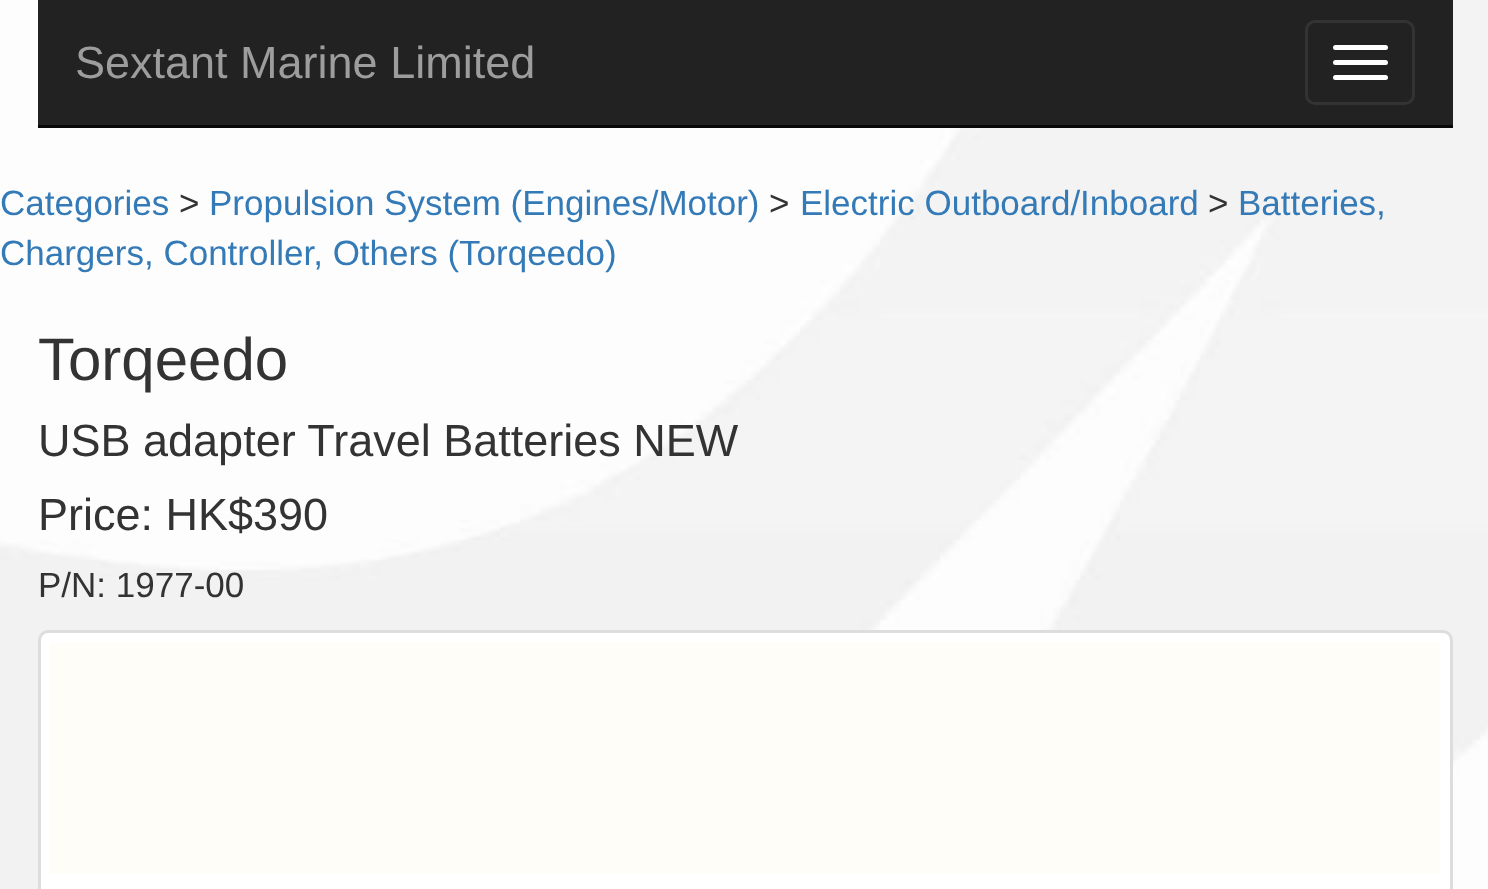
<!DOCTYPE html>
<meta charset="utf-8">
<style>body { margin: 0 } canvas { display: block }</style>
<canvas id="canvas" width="1488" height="889"></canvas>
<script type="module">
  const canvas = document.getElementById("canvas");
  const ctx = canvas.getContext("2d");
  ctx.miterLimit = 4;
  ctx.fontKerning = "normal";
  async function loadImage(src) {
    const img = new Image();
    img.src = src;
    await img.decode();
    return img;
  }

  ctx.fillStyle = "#ffffff";
  ctx.fillRect(0, 0, 1488, 889);
  ctx.drawImage(await loadImage("img1.png"), 0, 0, 1488, 889);
  ctx.fillStyle = "#222222";
  ctx.fillRect(38, 0, 1415, 125);
  ctx.fillStyle = "#080808";
  ctx.fillRect(38, 125, 1415, 3);
  ctx.font = "45px Liberation Sans";
  ctx.fillStyle = "#9d9d9d";
  ctx.fillText("Sextant Marine Limited", 75, 78);
  ctx.beginPath();
  ctx.roundRect(1306.5, 21.5, 107, 82, 8.5);
  ctx.strokeStyle = "#333333";
  ctx.lineWidth = 3;
  ctx.stroke();
  ctx.fillStyle = "#ffffff";
  ctx.beginPath();
  ctx.roundRect(1333, 45, 55, 5, 2.5);
  ctx.fill();
  ctx.beginPath();
  ctx.roundRect(1333, 60, 55, 5, 2.5);
  ctx.fill();
  ctx.beginPath();
  ctx.roundRect(1333, 75, 55, 5, 2.5);
  ctx.fill();
  ctx.font = "35px Liberation Sans";
  ctx.fillStyle = "#337ab7";
  ctx.fillText("Categories", 0, 215);
  ctx.fillStyle = "#333333";
  ctx.fillText(">", 179, 215);
  ctx.fillStyle = "#337ab7";
  ctx.fillText("Propulsion System (Engines/Motor)", 209, 215);
  ctx.fillStyle = "#333333";
  ctx.fillText(">", 769, 215);
  ctx.fillStyle = "#337ab7";
  ctx.fillText("Electric Outboard/Inboard", 800, 215);
  ctx.fillStyle = "#333333";
  ctx.fillText(">", 1208, 215);
  ctx.fillStyle = "#337ab7";
  ctx.fillText("Batteries,", 1238, 215);
  ctx.fillText("Chargers, Controller, Others (Torqeedo)", 0, 265);
  ctx.font = "60px Liberation Sans";
  ctx.fillStyle = "#333333";
  ctx.fillText("Torqeedo", 38, 380);
  ctx.font = "45px Liberation Sans";
  ctx.fillText("USB adapter Travel Batteries NEW", 38, 456);
  ctx.fillText("Price: HK$390", 38, 530);
  ctx.font = "35px Liberation Sans";
  ctx.fillText("P/N: 1977-00", 38, 597);
  ctx.fillStyle = "#ffffff";
  ctx.beginPath();
  ctx.roundRect(39.5, 631.5, 1412, 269, 8.5);
  ctx.fill();
  ctx.strokeStyle = "#dddddd";
  ctx.stroke();
  ctx.fillStyle = "#fffdf8";
  ctx.fillRect(50, 643, 1390, 231);
</script>
